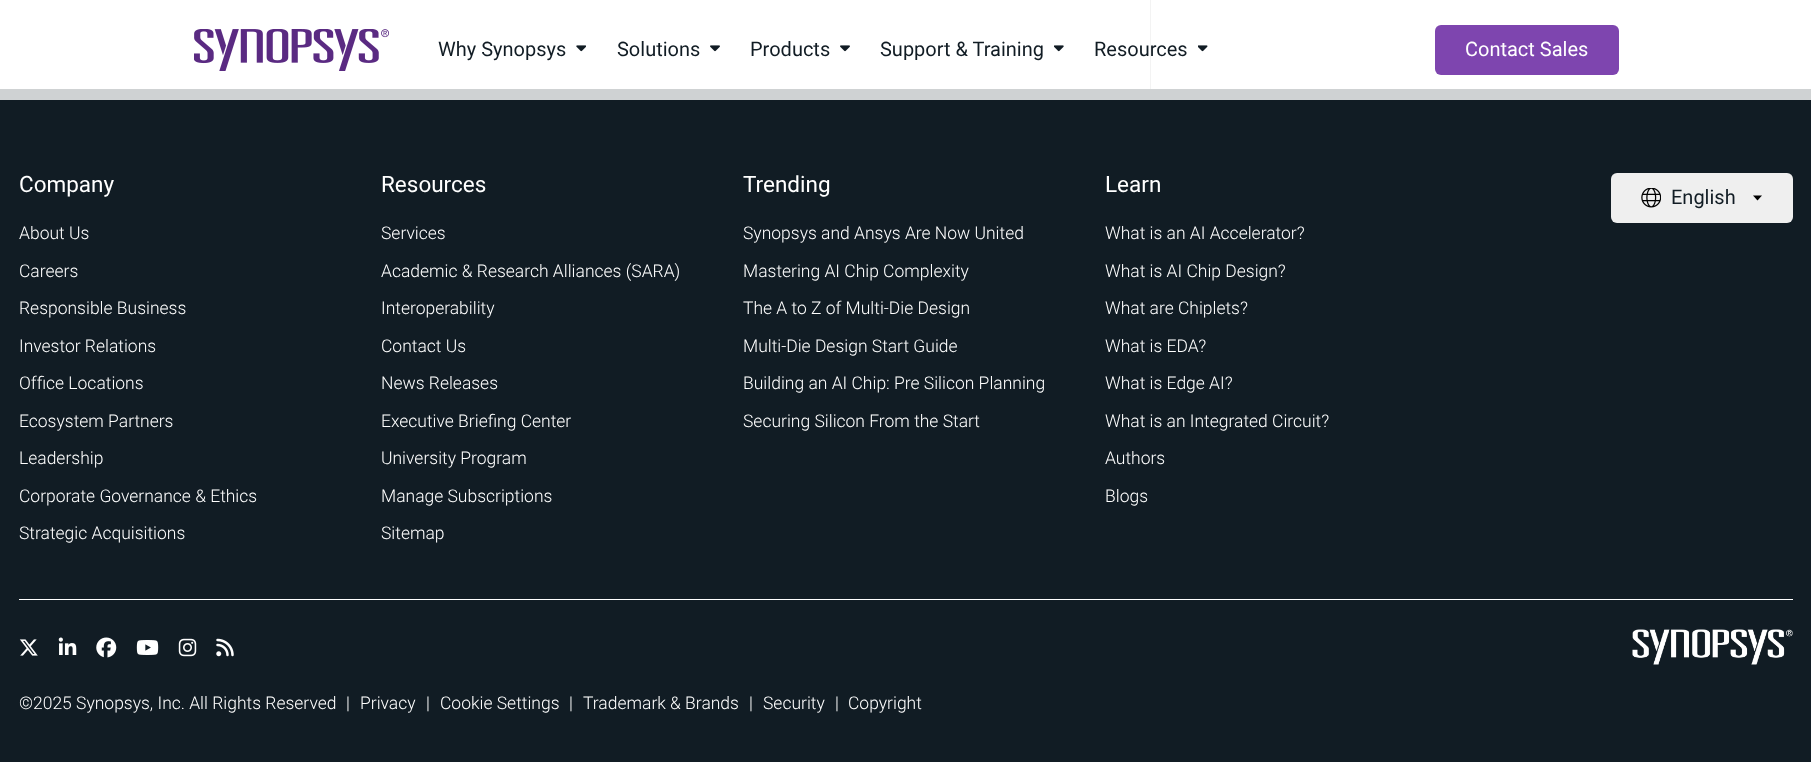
<!DOCTYPE html>
<meta charset="utf-8">
<style>body { margin: 0 } canvas { display: block }</style>
<canvas id="canvas" width="1811" height="762"></canvas>
<script type="module">
  const canvas = document.getElementById("canvas");
  const ctx = canvas.getContext("2d");
  ctx.miterLimit = 4;
  ctx.fontKerning = "normal";
  async function loadImage(src) {
    const img = new Image();
    img.src = src;
    await img.decode();
    return img;
  }

  ctx.fillStyle = "#ffffff";
  ctx.fillRect(0, 0, 1811, 762);
  ctx.fillStyle = "#f3f3f3";
  ctx.fillRect(1150, 0, 1, 89);
  ctx.drawImage(await loadImage("img1.png"), 194, 29, 195, 42);
  ctx.font = "20px Roboto";
  ctx.fillStyle = "#111c24";
  ctx.fillText("Why Synopsys", 438, 56);
  ctx.drawImage(await loadImage("img2.png"), 576, 45, 10, 7);
  ctx.fillText("Solutions", 617, 56);
  ctx.drawImage(await loadImage("img3.png"), 710, 45, 10, 7);
  ctx.fillText("Products", 750, 56);
  ctx.drawImage(await loadImage("img3.png"), 840, 45, 10, 7);
  ctx.fillText("Support & Training", 880, 56);
  ctx.drawImage(await loadImage("img4.png"), 1054, 45, 10, 7);
  ctx.fillText("Resources", 1094, 56);
  ctx.drawImage(await loadImage("img5.png"), 1198, 45, 10, 7);
  ctx.fillStyle = "#7e45af";
  ctx.beginPath();
  ctx.roundRect(1435, 25, 184, 50, 6);
  ctx.fill();
  ctx.fillStyle = "#ffffff";
  ctx.fillText("Contact Sales", 1465, 56);
  ctx.fillStyle = "#111c24";
  ctx.fillRect(0, 100, 1811, 662);
  ctx.fillStyle = "#cfd2d3";
  ctx.fillRect(0, 89, 1811, 11);
  ctx.font = "22.5px Roboto";
  ctx.fillStyle = "#ffffff";
  ctx.fillText("Company", 19, 192);
  ctx.font = "300 17.5px Roboto";
  ctx.fillText("About Us", 19, 239);
  ctx.fillText("Careers", 19, 277);
  ctx.fillText("Responsible Business", 19, 314);
  ctx.fillText("Investor Relations", 19, 352);
  ctx.fillText("Office Locations", 19, 389);
  ctx.fillText("Ecosystem Partners", 19, 427);
  ctx.fillText("Leadership", 19, 464);
  ctx.fillText("Corporate Governance & Ethics", 19, 502);
  ctx.fillText("Strategic Acquisitions", 19, 539);
  ctx.font = "22.5px Roboto";
  ctx.fillText("Resources", 381, 192);
  ctx.font = "300 17.5px Roboto";
  ctx.fillText("Services", 381, 239);
  ctx.fillText("Academic & Research Alliances (SARA)", 381, 277);
  ctx.fillText("Interoperability", 381, 314);
  ctx.fillText("Contact Us", 381, 352);
  ctx.fillText("News Releases", 381, 389);
  ctx.fillText("Executive Briefing Center", 381, 427);
  ctx.fillText("University Program", 381, 464);
  ctx.fillText("Manage Subscriptions", 381, 502);
  ctx.fillText("Sitemap", 381, 539);
  ctx.font = "22.5px Roboto";
  ctx.fillText("Trending", 743, 192);
  ctx.font = "300 17.5px Roboto";
  ctx.fillText("Synopsys and Ansys Are Now United", 743, 239);
  ctx.fillText("Mastering AI Chip Complexity", 743, 277);
  ctx.fillText("The A to Z of Multi-Die Design", 743, 314);
  ctx.fillText("Multi-Die Design Start Guide", 743, 352);
  ctx.fillText("Building an AI Chip: Pre Silicon Planning", 743, 389);
  ctx.fillText("Securing Silicon From the Start", 743, 427);
  ctx.font = "22.5px Roboto";
  ctx.fillText("Learn", 1105, 192);
  ctx.font = "300 17.5px Roboto";
  ctx.fillText("What is an AI Accelerator?", 1105, 239);
  ctx.fillText("What is AI Chip Design?", 1105, 277);
  ctx.fillText("What are Chiplets?", 1105, 314);
  ctx.fillText("What is EDA?", 1105, 352);
  ctx.fillText("What is Edge AI?", 1105, 389);
  ctx.fillText("What is an Integrated Circuit?", 1105, 427);
  ctx.fillText("Authors", 1105, 464);
  ctx.fillText("Blogs", 1105, 502);
  ctx.fillStyle = "#efefef";
  ctx.beginPath();
  ctx.roundRect(1611, 173, 182, 50, 6);
  ctx.fill();
  ctx.fillStyle = "#000000";
  ctx.beginPath();
  ctx.moveTo(1753, 195.5);
  ctx.lineTo(1757.5, 200.5);
  ctx.lineTo(1762, 195.5);
  ctx.closePath();
  ctx.fill();
  ctx.drawImage(await loadImage("img6.png"), 1641, 188, 20, 20);
  ctx.font = "20px Roboto";
  ctx.fillStyle = "#111c24";
  ctx.fillText("English", 1671, 204);
  ctx.fillStyle = "#ffffff";
  ctx.fillRect(19, 599, 1774, 1);
  ctx.drawImage(await loadImage("img7.png"), 19, 639, 19, 17);
  ctx.drawImage(await loadImage("img8.png"), 58, 637, 19, 18);
  ctx.drawImage(await loadImage("img9.png"), 96, 637, 21, 21);
  ctx.drawImage(await loadImage("img10.png"), 136, 640, 23, 15);
  ctx.drawImage(await loadImage("img11.png"), 178, 638, 19, 19);
  ctx.drawImage(await loadImage("img12.png"), 216, 638, 18, 19);
  ctx.drawImage(await loadImage("img13.png"), 1632, 629, 161, 36);
  ctx.font = "300 17.5px Roboto";
  ctx.fillText("©2025 Synopsys, Inc. All Rights Reserved", 19, 709);
  ctx.fillText("|", 346, 709);
  ctx.fillText("Privacy", 360, 709);
  ctx.fillText("|", 426, 709);
  ctx.fillText("Cookie Settings", 440, 709);
  ctx.fillText("|", 569, 709);
  ctx.fillText("Trademark & Brands", 583, 709);
  ctx.fillText("|", 749, 709);
  ctx.fillText("Security", 763, 709);
  ctx.fillText("|", 835, 709);
  ctx.fillText("Copyright", 848, 709);
</script>
